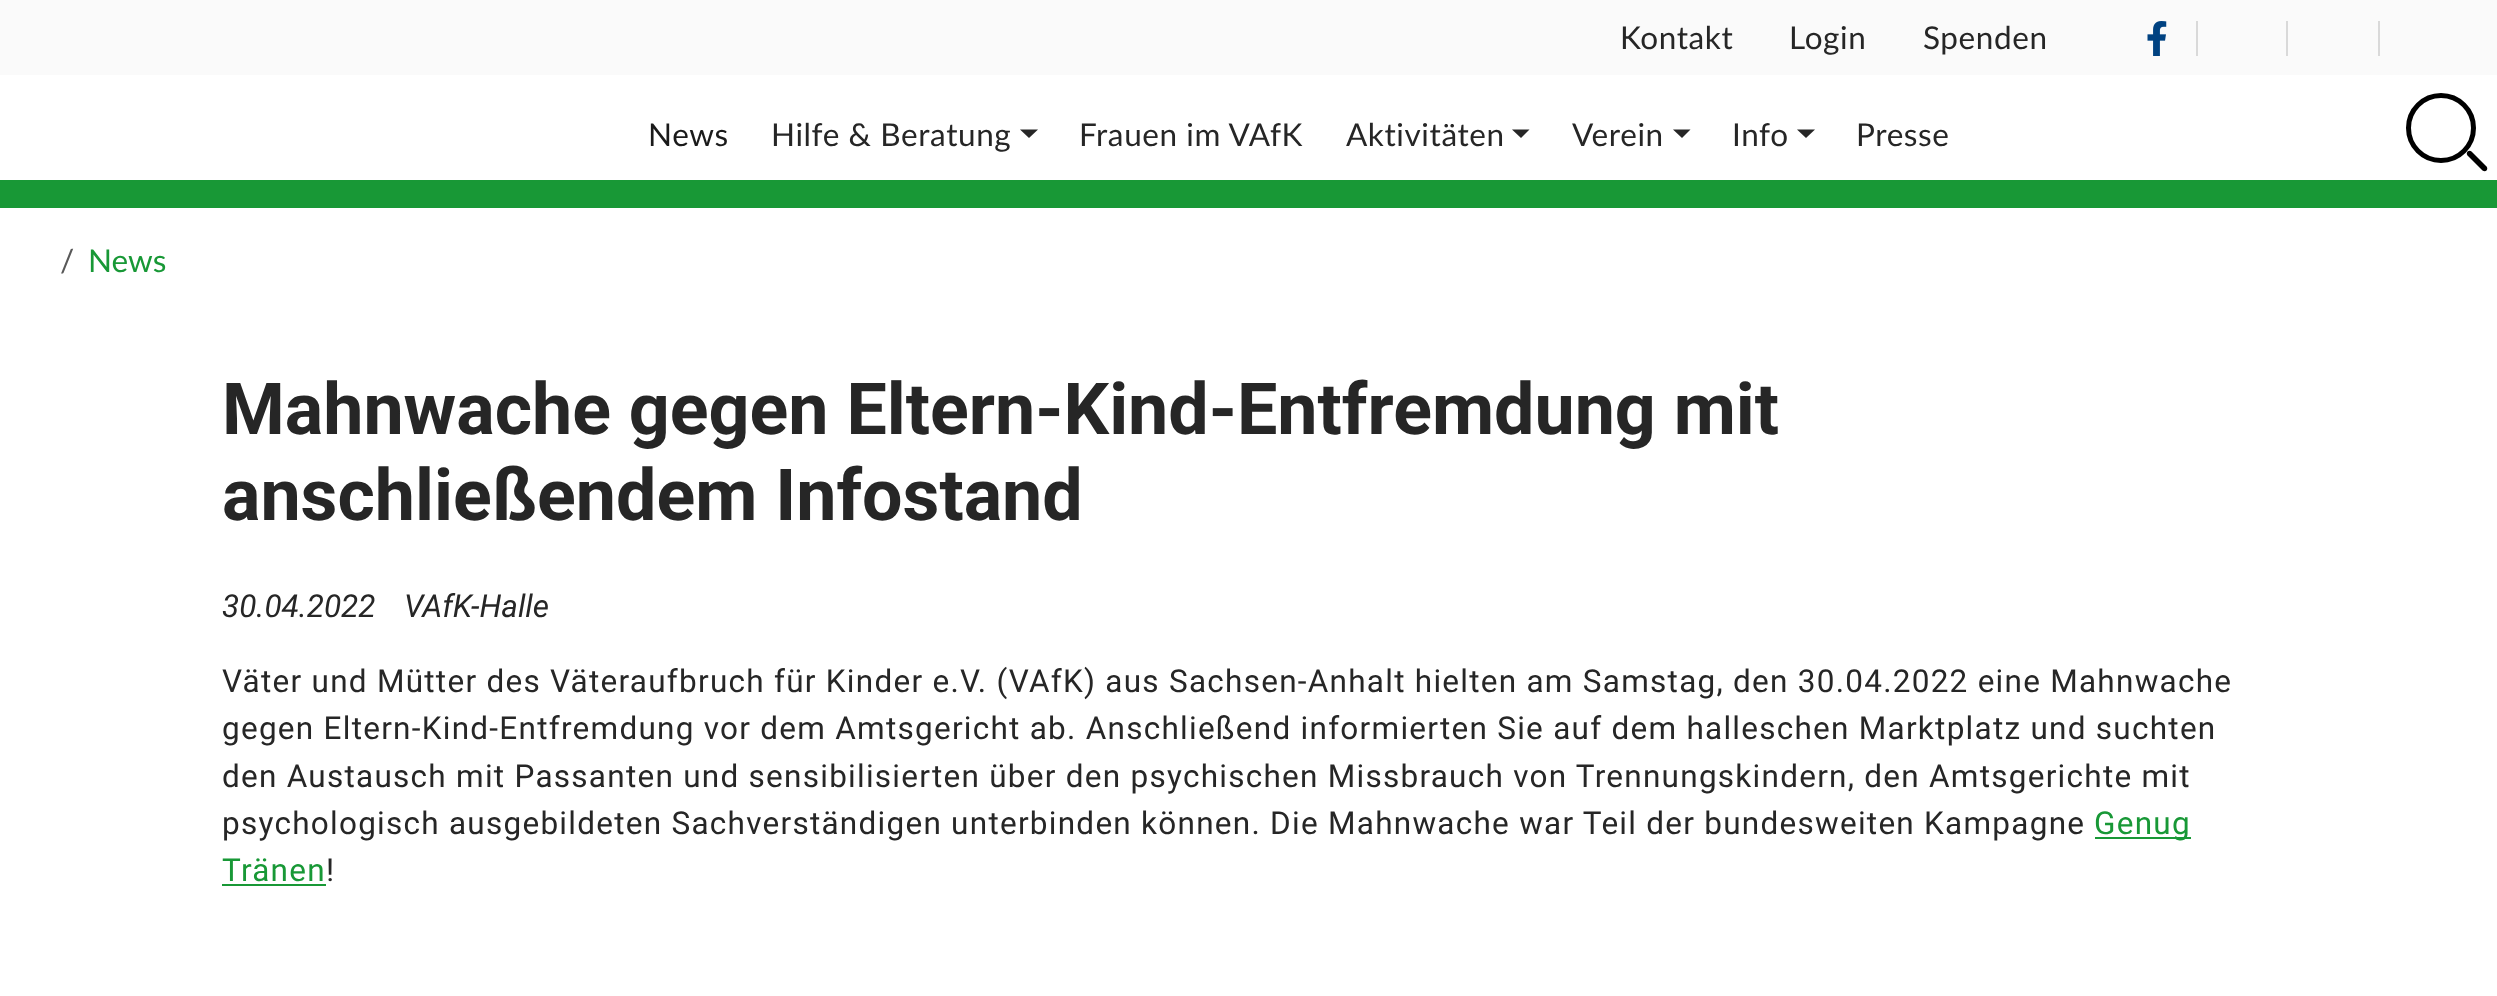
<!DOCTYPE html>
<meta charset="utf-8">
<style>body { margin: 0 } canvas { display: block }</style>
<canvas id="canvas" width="2497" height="996"></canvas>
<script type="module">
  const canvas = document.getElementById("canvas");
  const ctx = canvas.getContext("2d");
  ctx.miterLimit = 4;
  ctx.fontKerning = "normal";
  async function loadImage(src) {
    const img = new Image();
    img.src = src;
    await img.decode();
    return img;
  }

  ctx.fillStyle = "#ffffff";
  ctx.fillRect(0, 0, 2497, 996);
  ctx.fillStyle = "#fafafa";
  ctx.fillRect(0, 0, 2497, 75);
  ctx.letterSpacing = "0.6px";
  ctx.font = "31.5px Lato";
  ctx.fillStyle = "#262626";
  ctx.fillText("Kontakt", 1620, 49);
  ctx.fillText("Login", 1789, 49);
  ctx.fillText("Spenden", 1923, 49);
  ctx.fillStyle = "#d9d9d9";
  ctx.fillRect(2196, 21, 2, 35);
  ctx.drawImage(await loadImage("img1.png"), 2147, 21, 20, 35);
  ctx.fillRect(2286, 21, 2, 35);
  ctx.fillRect(2378, 21, 2, 35);
  ctx.fillStyle = "#1a1a1a";
  ctx.fillText("News", 648, 146);
  ctx.fillStyle = "#262626";
  ctx.fillText("Hilfe & Beratung", 771, 146);
  ctx.beginPath();
  ctx.moveTo(1020, 129.5);
  ctx.lineTo(1038, 129.5);
  ctx.lineTo(1029, 138);
  ctx.closePath();
  ctx.fill();
  ctx.fillText("Frauen im VAfK", 1079, 146);
  ctx.fillText("Aktivitäten", 1346, 146);
  ctx.beginPath();
  ctx.moveTo(1512, 129.5);
  ctx.lineTo(1529.5, 129.5);
  ctx.lineTo(1521, 138);
  ctx.closePath();
  ctx.fill();
  ctx.fillText("Verein", 1572, 146);
  ctx.beginPath();
  ctx.moveTo(1673, 129.5);
  ctx.lineTo(1690.5, 129.5);
  ctx.lineTo(1682, 138);
  ctx.closePath();
  ctx.fill();
  ctx.fillText("Info", 1732, 146);
  ctx.beginPath();
  ctx.moveTo(1797, 129.5);
  ctx.lineTo(1815, 129.5);
  ctx.lineTo(1806, 138);
  ctx.closePath();
  ctx.fill();
  ctx.fillText("Presse", 1856, 146);
  ctx.beginPath();
  ctx.arc(2441, 128, 32.5, 0, Math.PI * 2);
  ctx.strokeStyle = "#000000";
  ctx.lineWidth = 5;
  ctx.stroke();
  ctx.fillStyle = "#000000";
  ctx.beginPath();
  ctx.moveTo(2482.5, 170.5);
  ctx.lineTo(2467.5, 155.5);
  ctx.bezierCurveTo(2466.5, 154.5, 2466.5, 152.5, 2467.5, 151.5);
  ctx.bezierCurveTo(2468.5, 150.5, 2470.5, 150.5, 2471.5, 151.5);
  ctx.lineTo(2486.5, 166.5);
  ctx.bezierCurveTo(2487.5, 167.5, 2487.5, 169.5, 2486.5, 170.5);
  ctx.bezierCurveTo(2485.5, 171.5, 2484, 171.5, 2482.5, 170.5);
  ctx.closePath();
  ctx.fill();
  ctx.fillStyle = "#189836";
  ctx.fillRect(0, 180, 2497, 28);
  ctx.letterSpacing = "0px";
  ctx.fillStyle = "#595959";
  ctx.fillText("/", 60, 272);
  ctx.fillStyle = "#189836";
  ctx.fillText("News", 88, 272);
  ctx.font = "bold 71.75px Roboto";
  ctx.fillStyle = "#262626";
  ctx.fillText("Mahnwache gegen Eltern-Kind-Entfremdung mit", 222, 434);
  ctx.fillText("anschließendem Infostand", 222, 520);
  ctx.font = "italic 31.5px Roboto";
  ctx.fillText("30.04.2022", 222, 617);
  ctx.fillText("VAfK-Halle", 404, 617);
  ctx.letterSpacing = "1.26px";
  ctx.font = "31.5px Roboto";
  ctx.fillText("Väter und Mütter des Väteraufbruch für Kinder e.V. (VAfK) aus Sachsen-Anhalt hielten am Samstag, den 30.04.2022 eine Mahnwache", 222, 692);
  ctx.fillText("gegen Eltern-Kind-Entfremdung vor dem Amtsgericht ab. Anschließend informierten Sie auf dem halleschen Marktplatz und suchten", 222, 739);
  ctx.fillText("den Austausch mit Passanten und sensibilisierten über den psychischen Missbrauch von Trennungskindern, den Amtsgerichte mit", 222, 787);
  ctx.fillText("psychologisch ausgebildeten Sachverständigen unterbinden können. Die Mahnwache war Teil der bundesweiten Kampagne", 222, 834);
  ctx.fillStyle = "#189836";
  ctx.fillRect(2095, 837, 96, 2);
  ctx.fillText("Genug", 2094, 834);
  ctx.fillText("Tränen", 222, 881);
  ctx.fillRect(222, 884, 104, 2);
  ctx.fillStyle = "#262626";
  ctx.fillText("!", 326, 881);
</script>
